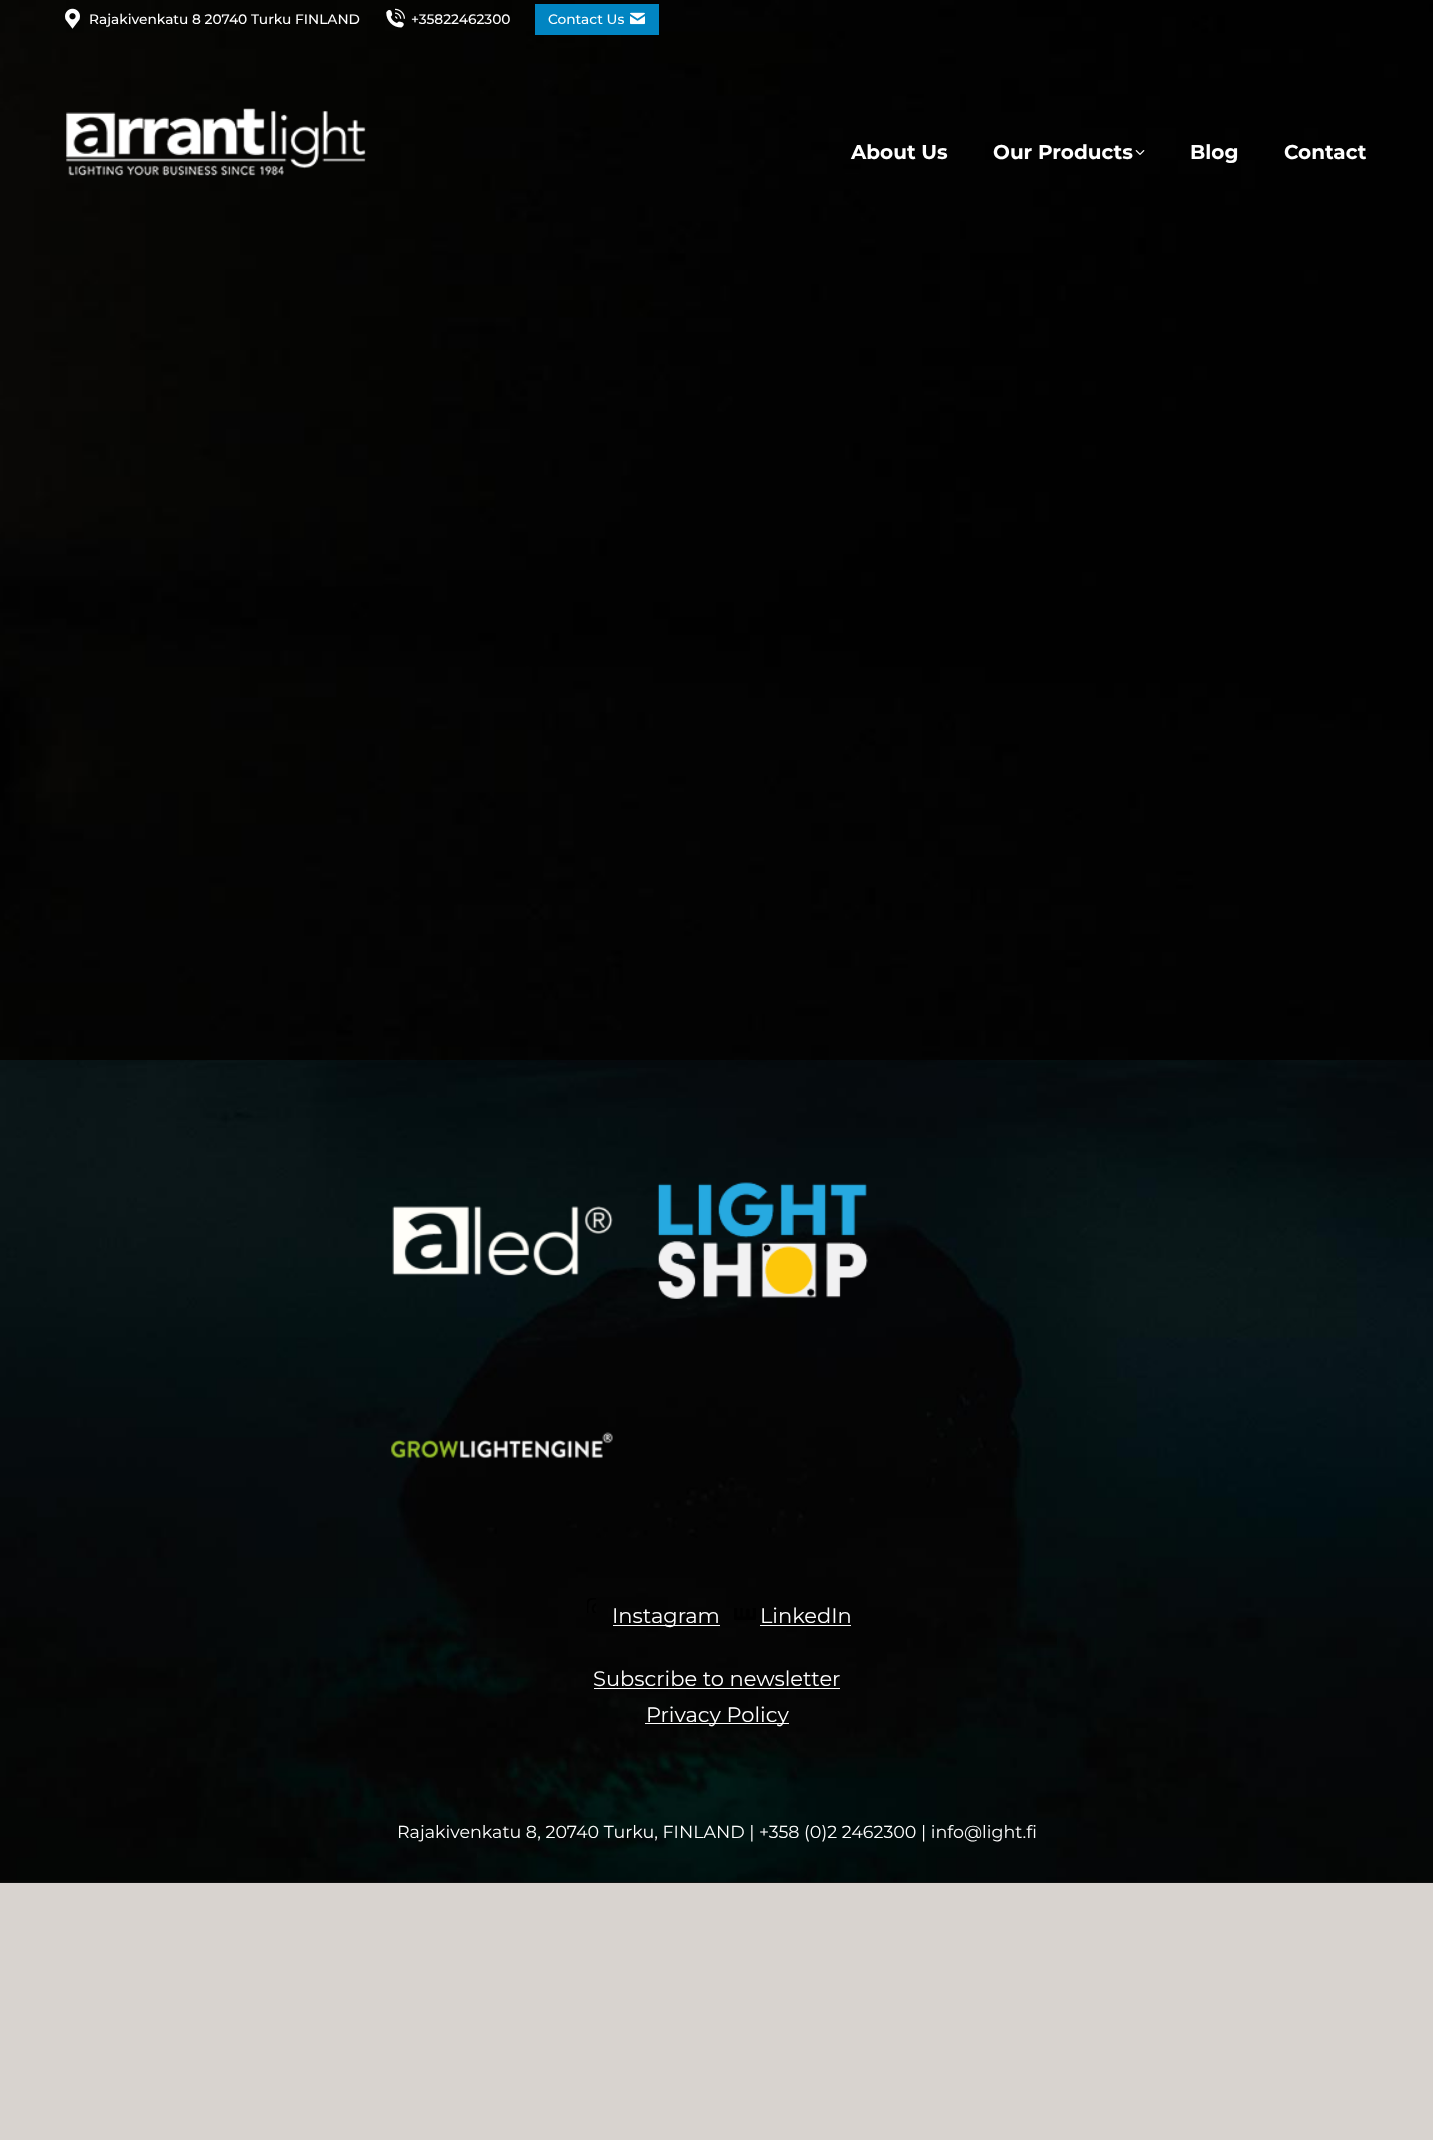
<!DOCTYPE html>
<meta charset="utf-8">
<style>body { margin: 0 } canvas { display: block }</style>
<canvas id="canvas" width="1433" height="2140"></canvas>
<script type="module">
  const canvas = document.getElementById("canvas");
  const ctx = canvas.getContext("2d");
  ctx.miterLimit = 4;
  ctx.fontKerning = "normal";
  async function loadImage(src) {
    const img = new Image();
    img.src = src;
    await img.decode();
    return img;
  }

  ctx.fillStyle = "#d8d3cf";
  ctx.fillRect(0, 0, 1433, 2140);
  ctx.drawImage(await loadImage("img1.png"), 0, 0, 1433, 1060);
  ctx.drawImage(await loadImage("img2.png"), 65, 8, 15, 21);
  ctx.font = "500 13.75px Montserrat";
  ctx.fillStyle = "#ffffff";
  ctx.fillText("Rajakivenkatu 8 20740 Turku FINLAND", 89, 24);
  ctx.drawImage(await loadImage("img3.png"), 386, 8, 19, 20);
  ctx.fillText("+35822462300", 411, 24);
  ctx.fillStyle = "#0185c2";
  ctx.fillRect(535, 4, 124, 31);
  ctx.fillStyle = "#ffffff";
  ctx.fillText("Contact Us", 548, 24);
  ctx.drawImage(await loadImage("img4.png"), 630, 12, 15, 13);
  ctx.drawImage(await loadImage("img5.png"), 66, 108, 300, 68);
  ctx.font = "bold 20px Montserrat";
  ctx.fillText("About Us", 851, 159);
  ctx.fillText("Our Products", 993, 159);
  ctx.drawImage(await loadImage("img6.png"), 1135, 150, 10, 5);
  ctx.fillText("Blog", 1190, 159);
  ctx.fillText("Contact", 1284, 159);
  ctx.fillStyle = "#141414";
  ctx.fillRect(0, 1882, 1433, 1);
  ctx.drawImage(await loadImage("img7.png"), 0, 1060, 1433, 823);
  ctx.drawImage(await loadImage("img8.png"), 392, 1206, 221, 70);
  ctx.drawImage(await loadImage("img9.png"), 657, 1182, 211, 117);
  ctx.drawImage(await loadImage("img10.png"), 391, 1432, 222, 26);
  ctx.drawImage(await loadImage("img11.png"), 587, 1598, 9, 15);
  ctx.fillStyle = "#ffffff";
  ctx.fillRect(613, 1625, 107, 1);
  ctx.font = "21px Montserrat";
  ctx.fillText("Instagram", 612, 1623);
  ctx.drawImage(await loadImage("img12.png"), 734, 1608, 22, 12);
  ctx.fillText("LinkedIn", 760, 1623);
  ctx.fillRect(760, 1625, 91, 1);
  ctx.fillText("Subscribe to newsletter", 593, 1686);
  ctx.fillRect(594, 1688, 246, 1);
  ctx.fillRect(645, 1723, 144, 1);
  ctx.fillText("Privacy Policy", 646, 1722);
  ctx.font = "17.5px Montserrat";
  ctx.fillText("Rajakivenkatu 8, 20740 Turku, FINLAND | +358 (0)2 2462300 | info@light.fi", 397, 1838);
</script>
